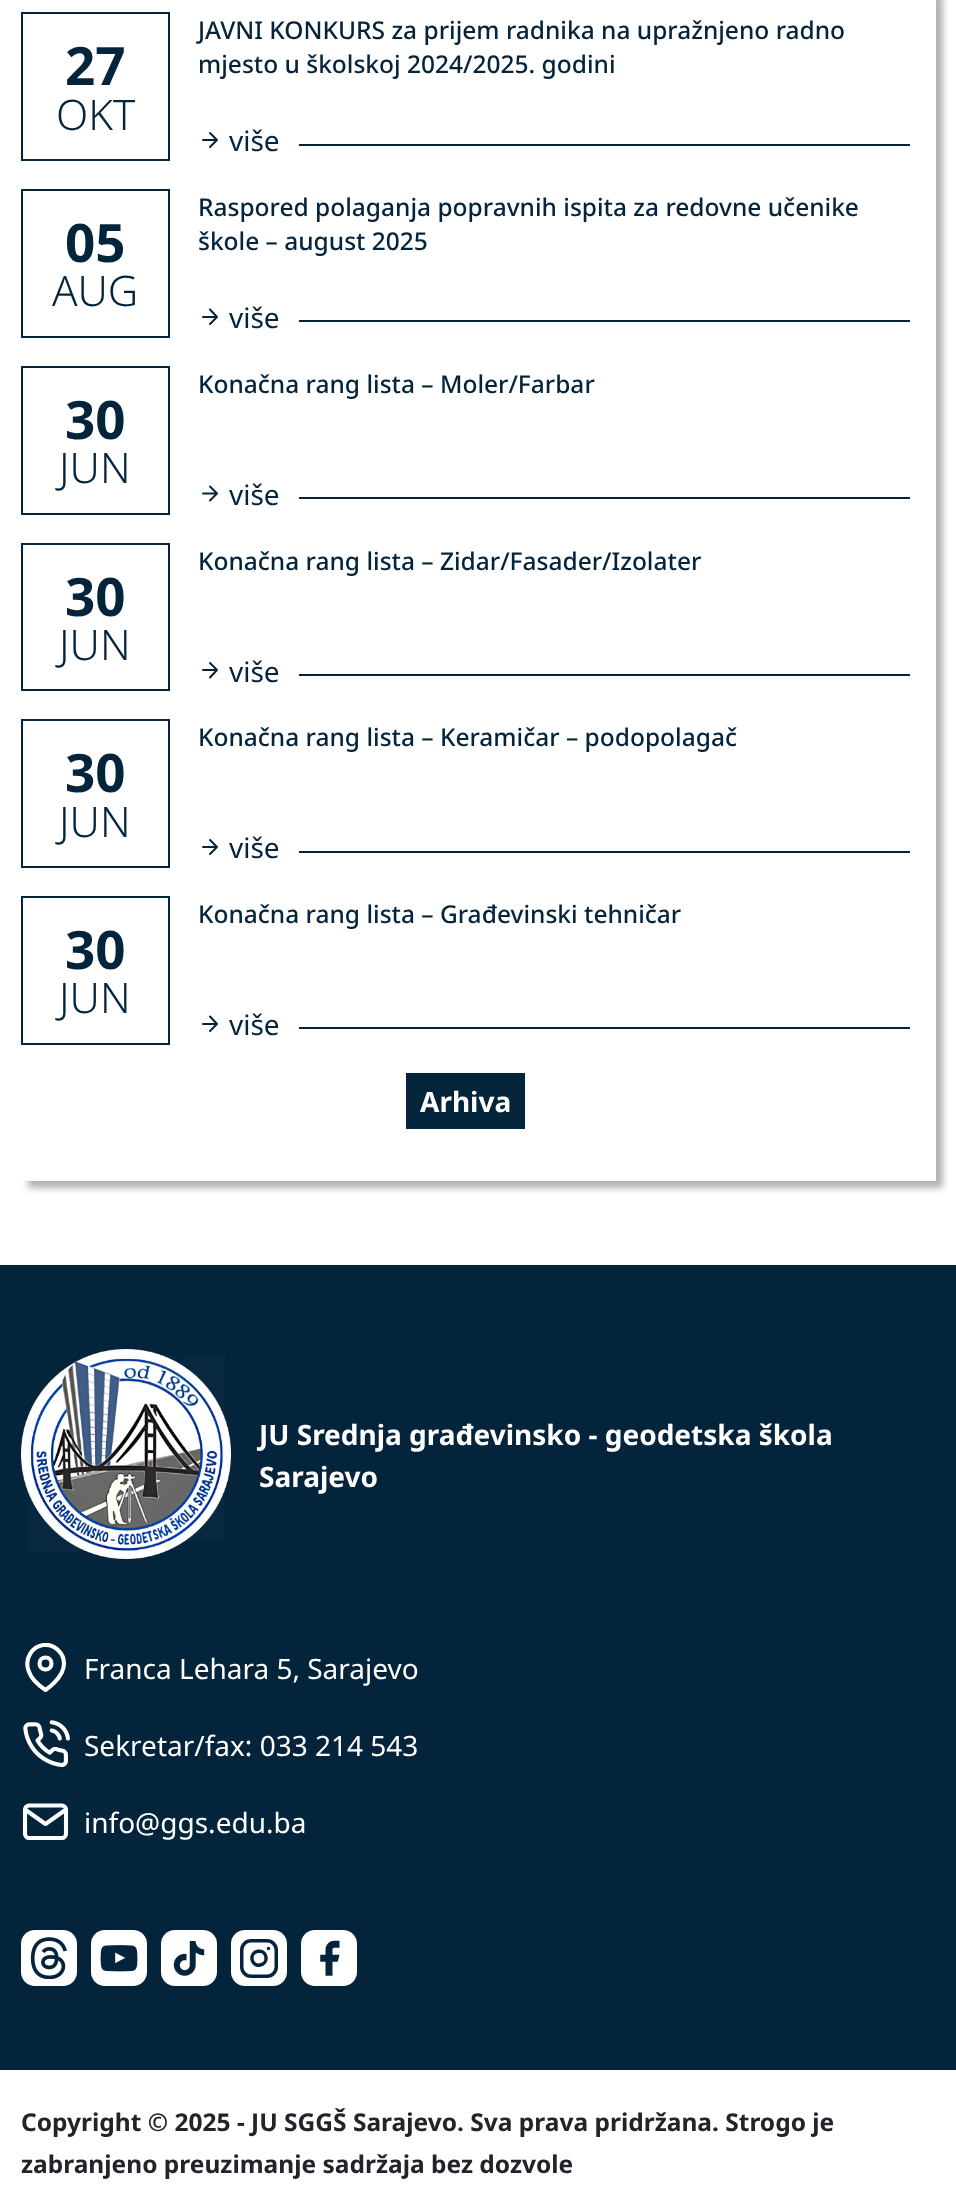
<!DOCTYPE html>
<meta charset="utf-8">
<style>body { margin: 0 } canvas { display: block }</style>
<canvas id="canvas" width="956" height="2210"></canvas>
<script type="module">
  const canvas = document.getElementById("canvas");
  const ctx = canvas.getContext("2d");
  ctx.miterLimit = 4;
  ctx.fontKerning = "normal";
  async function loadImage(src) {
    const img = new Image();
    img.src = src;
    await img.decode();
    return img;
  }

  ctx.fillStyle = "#ffffff";
  ctx.fillRect(0, 0, 956, 2210);
  ctx.save();
  ctx.beginPath();
  ctx.moveTo(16, 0);
  ctx.lineTo(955, 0);
  ctx.lineTo(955, 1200);
  ctx.lineTo(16, 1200);
  ctx.closePath();
  ctx.moveTo(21, -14);
  ctx.lineTo(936, -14);
  ctx.lineTo(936, 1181);
  ctx.lineTo(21, 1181);
  ctx.closePath();
  ctx.clip("evenodd");
  ctx.fillStyle = "rgba(0, 0, 0, 0.3)";
  ctx.filter = "blur(3.5px)";
  ctx.beginPath();
  ctx.rect(28, -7, 915, 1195);
  ctx.fill();
  ctx.filter = "none";
  ctx.restore();
  ctx.strokeStyle = "#04243c";
  ctx.lineWidth = 2;
  ctx.strokeRect(22, 13, 147, 147);
  ctx.font = "bold 53px Noto Sans";
  ctx.fillStyle = "#04243c";
  ctx.fillText("27", 65, 85);
  ctx.font = "300 42px Noto Sans";
  ctx.fillText("OKT", 56, 130);
  ctx.font = "500 24.5px Noto Sans";
  ctx.fillText("JAVNI KONKURS za prijem radnika na upražnjeno radno", 198, 39);
  ctx.fillText("mjesto u školskoj 2024/2025. godini", 198, 73);
  ctx.beginPath();
  ctx.moveTo(203, 140);
  ctx.lineTo(217, 140);
  ctx.moveTo(210, 133);
  ctx.lineTo(217, 140);
  ctx.lineTo(210, 147);
  ctx.lineCap = "round";
  ctx.lineJoin = "round";
  ctx.stroke();
  ctx.font = "28px Noto Sans";
  ctx.fillText("više", 229, 151);
  ctx.fillRect(299, 144, 611, 2);
  ctx.lineJoin = "miter";
  ctx.strokeRect(22, 190, 147, 147);
  ctx.font = "bold 53px Noto Sans";
  ctx.fillText("05", 65, 262);
  ctx.font = "300 42px Noto Sans";
  ctx.fillText("AUG", 52, 306);
  ctx.font = "500 24.5px Noto Sans";
  ctx.fillText("Raspored polaganja popravnih ispita za redovne učenike", 198, 216);
  ctx.fillText("škole – august 2025", 198, 250);
  ctx.beginPath();
  ctx.moveTo(203, 317);
  ctx.lineTo(217, 317);
  ctx.moveTo(210, 309.5);
  ctx.lineTo(217, 317);
  ctx.lineTo(210, 324);
  ctx.lineJoin = "round";
  ctx.stroke();
  ctx.font = "28px Noto Sans";
  ctx.fillText("više", 229, 328);
  ctx.fillRect(299, 320, 611, 2);
  ctx.lineJoin = "miter";
  ctx.strokeRect(22, 367, 147, 147);
  ctx.font = "bold 53px Noto Sans";
  ctx.fillText("30", 65, 439);
  ctx.font = "300 42px Noto Sans";
  ctx.fillText("JUN", 59, 483);
  ctx.font = "500 24.5px Noto Sans";
  ctx.fillText("Konačna rang lista – Moler/Farbar", 198, 393);
  ctx.beginPath();
  ctx.moveTo(203, 493.5);
  ctx.lineTo(217, 493.5);
  ctx.moveTo(210, 486.5);
  ctx.lineTo(217, 493.5);
  ctx.lineTo(210, 500.5);
  ctx.lineJoin = "round";
  ctx.stroke();
  ctx.font = "28px Noto Sans";
  ctx.fillText("više", 229, 505);
  ctx.fillRect(299, 497, 611, 2);
  ctx.lineJoin = "miter";
  ctx.strokeRect(22, 544, 147, 146);
  ctx.font = "bold 53px Noto Sans";
  ctx.fillText("30", 65, 616);
  ctx.font = "300 42px Noto Sans";
  ctx.fillText("JUN", 59, 660);
  ctx.font = "500 24.5px Noto Sans";
  ctx.fillText("Konačna rang lista – Zidar/Fasader/Izolater", 198, 570);
  ctx.beginPath();
  ctx.moveTo(203, 670);
  ctx.lineTo(217, 670);
  ctx.moveTo(210, 663);
  ctx.lineTo(217, 670);
  ctx.lineTo(210, 677.5);
  ctx.lineJoin = "round";
  ctx.stroke();
  ctx.font = "28px Noto Sans";
  ctx.fillText("više", 229, 682);
  ctx.fillRect(299, 674, 611, 2);
  ctx.lineJoin = "miter";
  ctx.strokeRect(22, 720, 147, 147);
  ctx.font = "bold 53px Noto Sans";
  ctx.fillText("30", 65, 792);
  ctx.font = "300 42px Noto Sans";
  ctx.fillText("JUN", 59, 837);
  ctx.font = "500 24.5px Noto Sans";
  ctx.fillText("Konačna rang lista – Keramičar – podopolagač", 198, 746);
  ctx.beginPath();
  ctx.moveTo(203, 847);
  ctx.lineTo(217, 847);
  ctx.moveTo(210, 840);
  ctx.lineTo(217, 847);
  ctx.lineTo(210, 854);
  ctx.lineJoin = "round";
  ctx.stroke();
  ctx.font = "28px Noto Sans";
  ctx.fillText("više", 229, 858);
  ctx.fillRect(299, 851, 611, 2);
  ctx.lineJoin = "miter";
  ctx.strokeRect(22, 897, 147, 147);
  ctx.font = "bold 53px Noto Sans";
  ctx.fillText("30", 65, 969);
  ctx.font = "300 42px Noto Sans";
  ctx.fillText("JUN", 59, 1013);
  ctx.font = "500 24.5px Noto Sans";
  ctx.fillText("Konačna rang lista – Građevinski tehničar", 198, 923);
  ctx.beginPath();
  ctx.moveTo(203, 1024);
  ctx.lineTo(217, 1024);
  ctx.moveTo(210, 1016.5);
  ctx.lineTo(217, 1024);
  ctx.lineTo(210, 1031);
  ctx.lineJoin = "round";
  ctx.stroke();
  ctx.font = "28px Noto Sans";
  ctx.fillText("više", 229, 1035);
  ctx.fillRect(299, 1027, 611, 2);
  ctx.fillRect(406, 1073, 119, 56);
  ctx.font = "bold 28px Noto Sans";
  ctx.fillStyle = "#ffffff";
  ctx.fillText("Arhiva", 420, 1112);
  ctx.fillStyle = "#04243c";
  ctx.fillRect(0, 1265, 956, 805);
  ctx.drawImage(await loadImage("img1.png"), 21, 1349, 210, 210);
  ctx.fillStyle = "#ffffff";
  ctx.fillText("JU Srednja građevinsko - geodetska škola", 259, 1445);
  ctx.fillText("Sarajevo", 259, 1487);
  ctx.save();
  ctx.beginPath();
  ctx.rect(21, 1643, 49, 49);
  ctx.clip();
  ctx.beginPath();
  ctx.moveTo(64, 1663.5);
  ctx.bezierCurveTo(64, 1678, 45.5, 1690, 45.5, 1690);
  ctx.bezierCurveTo(6.5, 1664.5, 39.5, 1631.5, 58.5, 1650.5);
  ctx.bezierCurveTo(62, 1654, 64, 1659, 64, 1663.5);
  ctx.closePath();
  ctx.strokeStyle = "#ffffff";
  ctx.lineWidth = 4.1;
  ctx.stroke();
  ctx.restore();
  ctx.beginPath();
  ctx.arc(45.5, 1663.5, 6, 0, Math.PI * 2);
  ctx.strokeStyle = "#ffffff";
  ctx.lineWidth = 4.1;
  ctx.stroke();
  ctx.font = "28px Noto Sans";
  ctx.fillText("Franca Lehara 5, Sarajevo", 84, 1679);
  ctx.drawImage(await loadImage("img2.png"), 23, 1720, 47, 48);
  ctx.fillText("Sekretar/fax: 033 214 543", 84, 1756);
  ctx.beginPath();
  ctx.moveTo(29, 1805.5);
  ctx.lineTo(62, 1805.5);
  ctx.bezierCurveTo(64, 1805.5, 66, 1807.5, 66, 1809.5);
  ctx.lineTo(66, 1834);
  ctx.bezierCurveTo(66, 1836, 64, 1838, 62, 1838);
  ctx.lineTo(29, 1838);
  ctx.bezierCurveTo(27, 1838, 25, 1836, 25, 1834);
  ctx.lineTo(25, 1809.5);
  ctx.bezierCurveTo(25, 1807.5, 27, 1805.5, 29, 1805.5);
  ctx.closePath();
  ctx.moveTo(66, 1809.5);
  ctx.lineTo(45.5, 1824);
  ctx.lineTo(25, 1809.5);
  ctx.stroke();
  ctx.fillText("info@ggs.edu.ba", 84, 1833);
  ctx.beginPath();
  ctx.roundRect(21, 1930, 56, 56, 14);
  ctx.fill();
  ctx.drawImage(await loadImage("img3.png"), 30, 1937, 37, 42);
  ctx.beginPath();
  ctx.roundRect(91, 1930, 56, 56, 14);
  ctx.fill();
  ctx.drawImage(await loadImage("img4.png"), 100, 1945, 38, 27);
  ctx.beginPath();
  ctx.roundRect(161, 1930, 56, 56, 14);
  ctx.fill();
  ctx.drawImage(await loadImage("img5.png"), 173, 1941, 32, 35);
  ctx.beginPath();
  ctx.roundRect(231, 1930, 56, 56, 14);
  ctx.fill();
  ctx.beginPath();
  ctx.roundRect(241.75, 1940.75, 34.5, 35.5, 9.25);
  ctx.strokeStyle = "#04243c";
  ctx.lineWidth = 3.5;
  ctx.lineJoin = "miter";
  ctx.stroke();
  ctx.beginPath();
  ctx.moveTo(266, 1957);
  ctx.bezierCurveTo(267.5, 1966, 253.5, 1968.5, 252, 1959.5);
  ctx.bezierCurveTo(250.5, 1950, 264.5, 1948, 266, 1957);
  ctx.closePath();
  ctx.moveTo(268.5, 1948.5);
  ctx.lineTo(268.5, 1948.5);
  ctx.lineJoin = "round";
  ctx.stroke();
  ctx.beginPath();
  ctx.roundRect(301, 1930, 56, 56, 14);
  ctx.fill();
  ctx.drawImage(await loadImage("img6.png"), 320, 1940, 20, 36);
  ctx.font = "bold 24.5px Noto Sans";
  ctx.fillStyle = "#212529";
  ctx.fillText("Copyright © 2025 - JU SGGŠ Sarajevo. Sva prava pridržana. Strogo je", 21, 2131);
  ctx.fillText("zabranjeno preuzimanje sadržaja bez dozvole", 21, 2173);
</script>
